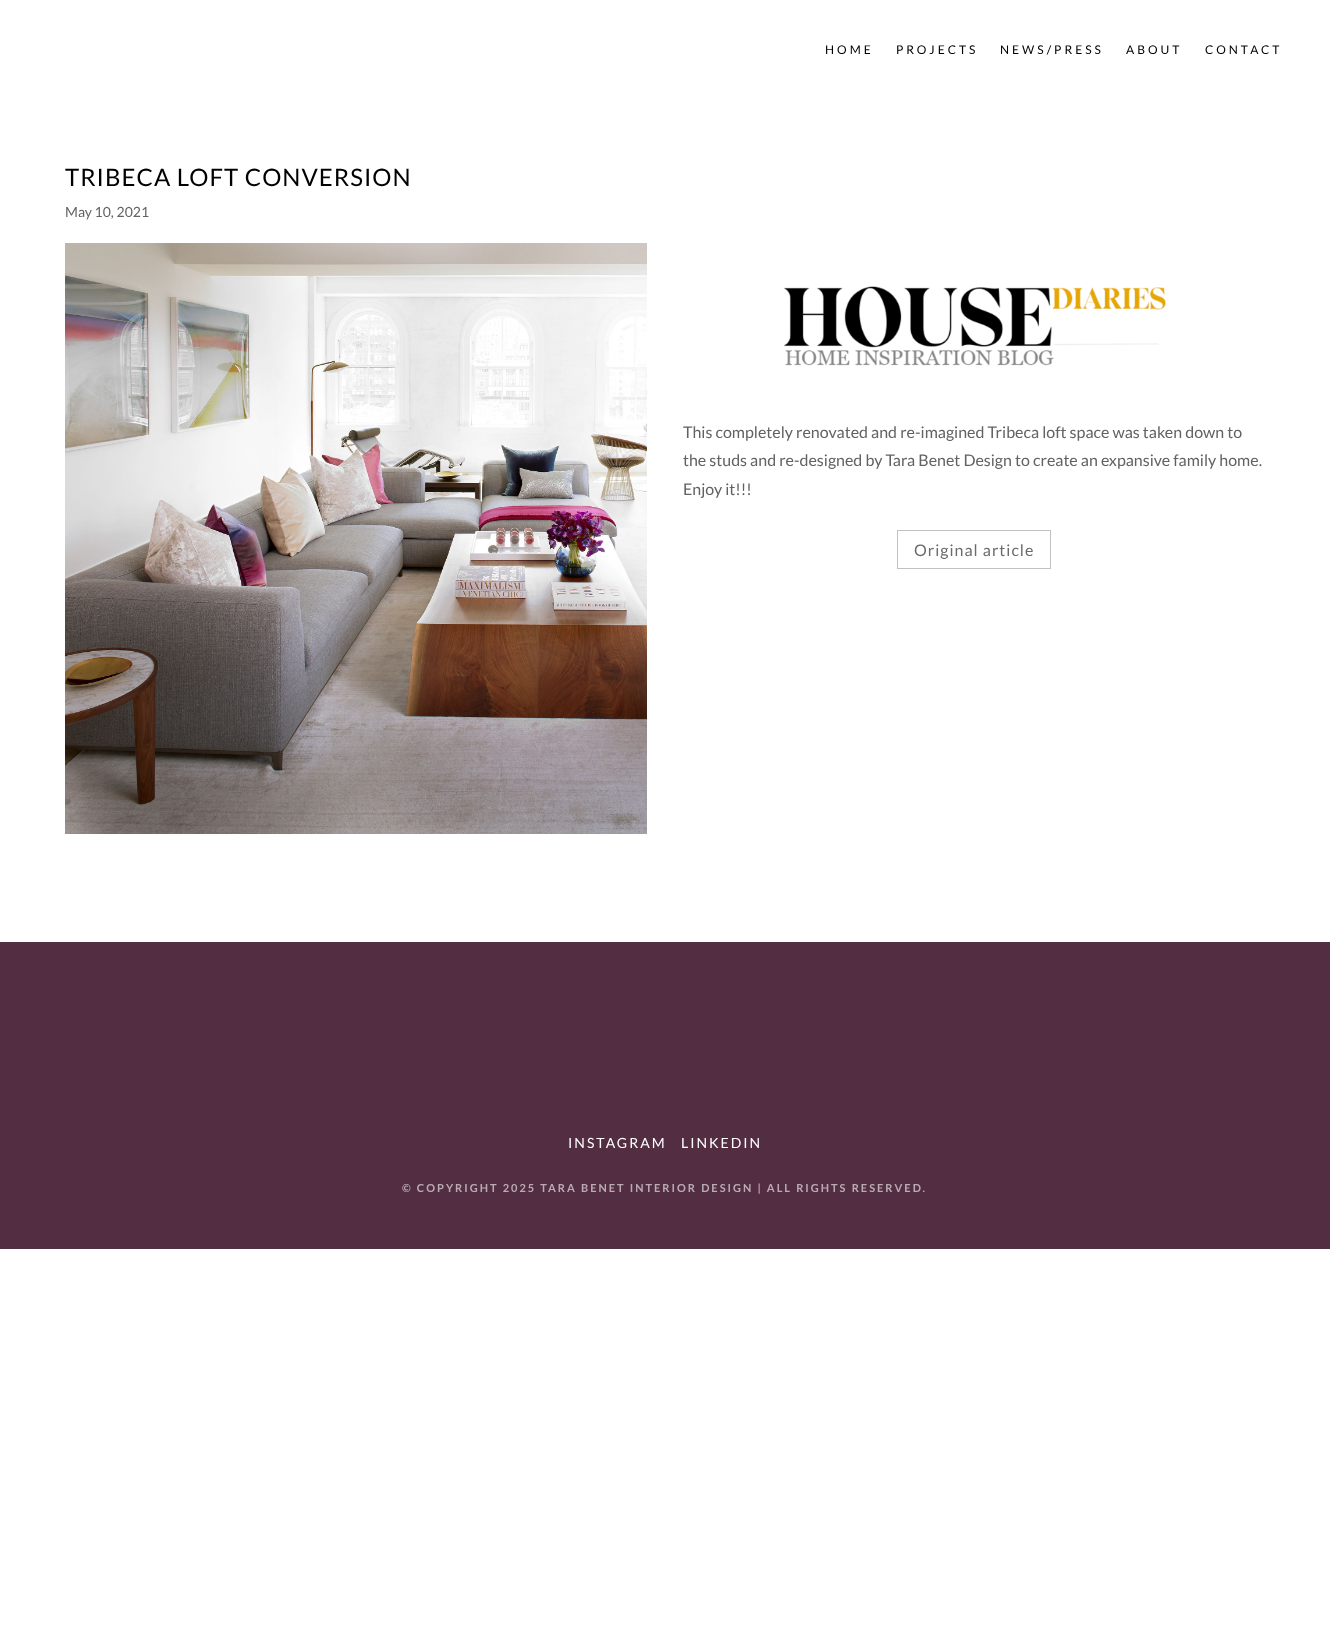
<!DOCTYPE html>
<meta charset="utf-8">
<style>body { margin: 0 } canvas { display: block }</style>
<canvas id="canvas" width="1330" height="1651"></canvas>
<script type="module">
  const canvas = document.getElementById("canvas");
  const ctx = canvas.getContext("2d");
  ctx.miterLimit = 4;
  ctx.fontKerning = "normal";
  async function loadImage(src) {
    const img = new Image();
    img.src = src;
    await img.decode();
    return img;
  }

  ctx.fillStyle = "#ffffff";
  ctx.fillRect(0, 0, 1330, 1651);
  ctx.letterSpacing = "3px";
  ctx.font = "12px Lato";
  ctx.fillStyle = "#000000";
  ctx.fillText("HOME", 825, 54);
  ctx.fillText("PROJECTS", 896, 54);
  ctx.fillText("NEWS/PRESS", 1000, 54);
  ctx.fillText("ABOUT", 1126, 54);
  ctx.fillText("CONTACT", 1205, 54);
  ctx.letterSpacing = "1px";
  ctx.font = "24px Lato";
  ctx.fillText("TRIBECA LOFT CONVERSION", 65, 186);
  ctx.letterSpacing = "0px";
  ctx.font = "14px Lato";
  ctx.fillStyle = "#626262";
  ctx.fillText("May 10, 2021", 65, 217);
  ctx.drawImage(await loadImage("img1.png"), 65, 243, 582, 591);
  ctx.drawImage(await loadImage("img2.png"), 784, 286, 382, 80);
  ctx.font = "16px Lato";
  ctx.fillText("This completely renovated and re-imagined Tribeca loft space was taken down to", 683, 438);
  ctx.fillText("the studs and re-designed by Tara Benet Design to create an expansive family home.", 683, 466);
  ctx.fillText("Enjoy it!!!", 683, 495);
  ctx.strokeStyle = "#c1c1c1";
  ctx.strokeRect(897.5, 530.5, 153, 38);
  ctx.letterSpacing = "1px";
  ctx.fillStyle = "#6b6b6b";
  ctx.fillText("Original article", 914, 556);
  ctx.fillStyle = "#532d42";
  ctx.fillRect(0, 942, 1330, 307);
  ctx.letterSpacing = "2px";
  ctx.font = "14px Lato";
  ctx.fillStyle = "#ffffff";
  ctx.fillText("INSTAGRAM", 568, 1148);
  ctx.fillText("LINKEDIN", 681, 1148);
  ctx.font = "bold 11px Lato";
  ctx.fillStyle = "#baabb3";
  ctx.fillText("© COPYRIGHT 2025 TARA BENET INTERIOR DESIGN | ALL RIGHTS RESERVED.", 402, 1192);
</script>
